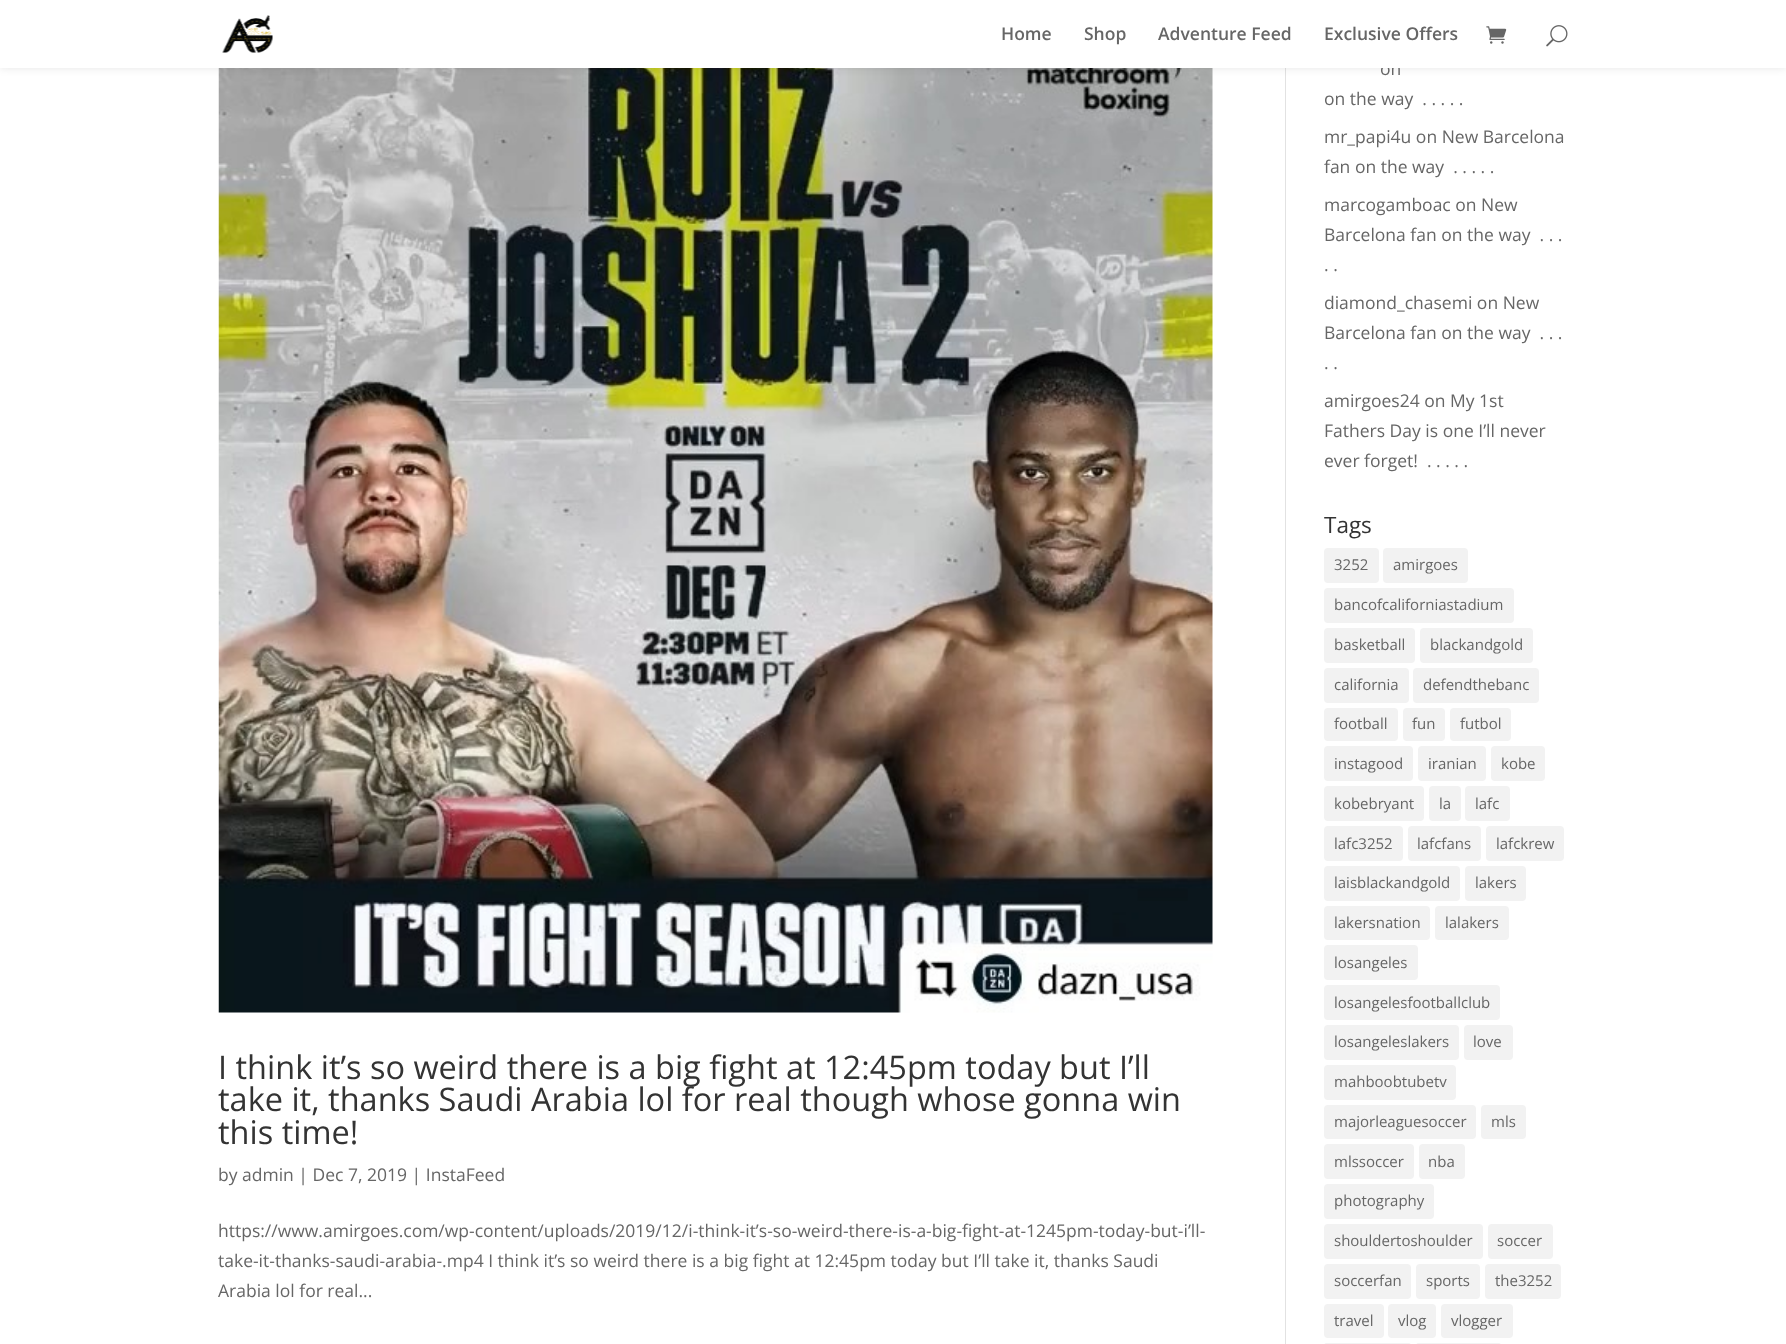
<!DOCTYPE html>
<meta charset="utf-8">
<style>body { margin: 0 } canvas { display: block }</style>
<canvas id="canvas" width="1786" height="1344"></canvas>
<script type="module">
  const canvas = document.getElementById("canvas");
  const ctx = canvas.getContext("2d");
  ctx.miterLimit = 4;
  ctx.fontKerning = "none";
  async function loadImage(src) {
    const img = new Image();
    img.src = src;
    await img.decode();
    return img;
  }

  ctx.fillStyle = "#ffffff";
  ctx.fillRect(0, 0, 1786, 1344);
  ctx.drawImage(await loadImage("img4.png"), 218, 68, 995, 945);
  ctx.fillStyle = "#e2e2e2";
  ctx.fillRect(1285, 68, 1, 1276);
  ctx.fillStyle = "rgba(0, 0, 0, 0.1)";
  ctx.filter = "blur(4.5px)";
  ctx.beginPath();
  ctx.rect(0, 0, 1786, 68);
  ctx.fill();
  ctx.filter = "none";
  ctx.font = "17.5px Open Sans";
  ctx.fillStyle = "#666666";
  ctx.fillText("on", 1380, 75);
  ctx.fillStyle = "#ffffff";
  ctx.fillRect(0, 0, 1786, 68);
  ctx.drawImage(await loadImage("img1.png"), 222, 15, 51, 38);
  ctx.font = "600 17.5px Open Sans";
  ctx.fillStyle = "#666666";
  ctx.fillText("Home", 1001, 40);
  ctx.fillText("Shop", 1084, 40);
  ctx.fillText("Adventure Feed", 1158, 40);
  ctx.fillText("Exclusive Offers", 1324, 40);
  ctx.drawImage(await loadImage("img2.png"), 1486, 26, 21, 18);
  ctx.drawImage(await loadImage("img3.png"), 1546, 25, 22, 22);
  ctx.font = "32.5px Open Sans";
  ctx.fillStyle = "#333333";
  ctx.fillText("I think it’s so weird there is a big fight at 12:45pm today but I’ll", 218, 1079);
  ctx.fillText("take it, thanks Saudi Arabia lol for real though whose gonna win", 218, 1111);
  ctx.fillText("this time!", 218, 1144);
  ctx.font = "17.5px Open Sans";
  ctx.fillStyle = "#666666";
  ctx.fillText("by admin | Dec 7, 2019 | InstaFeed", 218, 1181);
  ctx.fillText("https://www.amirgoes.com/wp-content/uploads/2019/12/i-think-it’s-so-weird-there-is-a-big-fight-at-1245pm-today-but-i’ll-", 218, 1237);
  ctx.fillText("take-it-thanks-saudi-arabia-.mp4 I think it’s so weird there is a big fight at 12:45pm today but I’ll take it, thanks Saudi", 218, 1267);
  ctx.fillText("Arabia lol for real...", 218, 1297);
  ctx.fillText("on the way  . . . . .", 1324, 105);
  ctx.fillText("mr_papi4u on New Barcelona", 1324, 143);
  ctx.fillText("fan on the way  . . . . .", 1324, 173);
  ctx.fillText("marcogamboac on New", 1324, 211);
  ctx.fillText("Barcelona fan on the way  . . .", 1324, 241);
  ctx.fillText(". .", 1324, 271);
  ctx.fillText("diamond_chasemi on New", 1324, 309);
  ctx.fillText("Barcelona fan on the way  . . .", 1324, 339);
  ctx.fillText(". .", 1324, 369);
  ctx.fillText("amirgoes24 on My 1st", 1324, 407);
  ctx.fillText("Fathers Day is one I’ll never", 1324, 437);
  ctx.fillText("ever forget!  . . . . .", 1324, 467);
  ctx.font = "22.5px Open Sans";
  ctx.fillStyle = "#333333";
  ctx.fillText("Tags", 1324, 533);
  ctx.fillStyle = "#f2f2f2";
  ctx.beginPath();
  ctx.roundRect(1324, 548, 55, 35, 4);
  ctx.fill();
  ctx.font = "15px Open Sans";
  ctx.fillStyle = "#666666";
  ctx.fillText("3252", 1334, 570);
  ctx.fillStyle = "#f2f2f2";
  ctx.beginPath();
  ctx.roundRect(1383, 548, 85, 35, 4);
  ctx.fill();
  ctx.fillStyle = "#666666";
  ctx.fillText("amirgoes", 1393, 570);
  ctx.fillStyle = "#f2f2f2";
  ctx.beginPath();
  ctx.roundRect(1324, 588, 190, 35, 4);
  ctx.fill();
  ctx.fillStyle = "#666666";
  ctx.fillText("bancofcaliforniastadium", 1334, 610);
  ctx.fillStyle = "#f2f2f2";
  ctx.beginPath();
  ctx.roundRect(1324, 628, 91, 35, 4);
  ctx.fill();
  ctx.fillStyle = "#666666";
  ctx.fillText("basketball", 1334, 650);
  ctx.fillStyle = "#f2f2f2";
  ctx.beginPath();
  ctx.roundRect(1420, 628, 113, 35, 4);
  ctx.fill();
  ctx.fillStyle = "#666666";
  ctx.fillText("blackandgold", 1430, 650);
  ctx.fillStyle = "#f2f2f2";
  ctx.beginPath();
  ctx.roundRect(1324, 668, 85, 35, 4);
  ctx.fill();
  ctx.fillStyle = "#666666";
  ctx.fillText("california", 1334, 690);
  ctx.fillStyle = "#f2f2f2";
  ctx.beginPath();
  ctx.roundRect(1413, 668, 126, 35, 4);
  ctx.fill();
  ctx.fillStyle = "#666666";
  ctx.fillText("defendthebanc", 1423, 690);
  ctx.fillStyle = "#f2f2f2";
  ctx.beginPath();
  ctx.roundRect(1324, 708, 74, 33, 4);
  ctx.fill();
  ctx.fillStyle = "#666666";
  ctx.fillText("football", 1334, 729);
  ctx.fillStyle = "#f2f2f2";
  ctx.beginPath();
  ctx.roundRect(1403, 708, 42, 33, 4);
  ctx.fill();
  ctx.fillStyle = "#666666";
  ctx.fillText("fun", 1412, 729);
  ctx.fillStyle = "#f2f2f2";
  ctx.beginPath();
  ctx.roundRect(1450, 708, 61, 33, 4);
  ctx.fill();
  ctx.fillStyle = "#666666";
  ctx.fillText("futbol", 1460, 729);
  ctx.fillStyle = "#f2f2f2";
  ctx.beginPath();
  ctx.roundRect(1324, 746, 89, 35, 4);
  ctx.fill();
  ctx.fillStyle = "#666666";
  ctx.fillText("instagood", 1334, 769);
  ctx.fillStyle = "#f2f2f2";
  ctx.beginPath();
  ctx.roundRect(1418, 746, 68, 35, 4);
  ctx.fill();
  ctx.fillStyle = "#666666";
  ctx.fillText("iranian", 1428, 769);
  ctx.fillStyle = "#f2f2f2";
  ctx.beginPath();
  ctx.roundRect(1491, 746, 54, 35, 4);
  ctx.fill();
  ctx.fillStyle = "#666666";
  ctx.fillText("kobe", 1501, 769);
  ctx.fillStyle = "#f2f2f2";
  ctx.beginPath();
  ctx.roundRect(1324, 786, 100, 35, 4);
  ctx.fill();
  ctx.fillStyle = "#666666";
  ctx.fillText("kobebryant", 1334, 809);
  ctx.fillStyle = "#f2f2f2";
  ctx.beginPath();
  ctx.roundRect(1429, 786, 32, 35, 4);
  ctx.fill();
  ctx.fillStyle = "#666666";
  ctx.fillText("la", 1439, 809);
  ctx.fillStyle = "#f2f2f2";
  ctx.beginPath();
  ctx.roundRect(1465, 786, 45, 35, 4);
  ctx.fill();
  ctx.fillStyle = "#666666";
  ctx.fillText("lafc", 1475, 809);
  ctx.fillStyle = "#f2f2f2";
  ctx.beginPath();
  ctx.roundRect(1324, 826, 79, 35, 4);
  ctx.fill();
  ctx.fillStyle = "#666666";
  ctx.fillText("lafc3252", 1334, 849);
  ctx.fillStyle = "#f2f2f2";
  ctx.beginPath();
  ctx.roundRect(1408, 826, 73, 35, 4);
  ctx.fill();
  ctx.fillStyle = "#666666";
  ctx.fillText("lafcfans", 1417, 849);
  ctx.fillStyle = "#f2f2f2";
  ctx.beginPath();
  ctx.roundRect(1486, 826, 78, 35, 4);
  ctx.fill();
  ctx.fillStyle = "#666666";
  ctx.fillText("lafckrew", 1496, 849);
  ctx.fillStyle = "#f2f2f2";
  ctx.beginPath();
  ctx.roundRect(1324, 866, 136, 35, 4);
  ctx.fill();
  ctx.fillStyle = "#666666";
  ctx.fillText("laisblackandgold", 1334, 888);
  ctx.fillStyle = "#f2f2f2";
  ctx.beginPath();
  ctx.roundRect(1465, 866, 61, 35, 4);
  ctx.fill();
  ctx.fillStyle = "#666666";
  ctx.fillText("lakers", 1475, 888);
  ctx.fillStyle = "#f2f2f2";
  ctx.beginPath();
  ctx.roundRect(1324, 906, 106, 34, 4);
  ctx.fill();
  ctx.fillStyle = "#666666";
  ctx.fillText("lakersnation", 1334, 928);
  ctx.fillStyle = "#f2f2f2";
  ctx.beginPath();
  ctx.roundRect(1435, 906, 74, 34, 4);
  ctx.fill();
  ctx.fillStyle = "#666666";
  ctx.fillText("lalakers", 1445, 928);
  ctx.fillStyle = "#f2f2f2";
  ctx.beginPath();
  ctx.roundRect(1324, 945, 94, 35, 4);
  ctx.fill();
  ctx.fillStyle = "#666666";
  ctx.fillText("losangeles", 1334, 968);
  ctx.fillStyle = "#f2f2f2";
  ctx.beginPath();
  ctx.roundRect(1324, 985, 176, 35, 4);
  ctx.fill();
  ctx.fillStyle = "#666666";
  ctx.fillText("losangelesfootballclub", 1334, 1008);
  ctx.fillStyle = "#f2f2f2";
  ctx.beginPath();
  ctx.roundRect(1324, 1025, 135, 35, 4);
  ctx.fill();
  ctx.fillStyle = "#666666";
  ctx.fillText("losangeleslakers", 1334, 1047);
  ctx.fillStyle = "#f2f2f2";
  ctx.beginPath();
  ctx.roundRect(1464, 1025, 49, 35, 4);
  ctx.fill();
  ctx.fillStyle = "#666666";
  ctx.fillText("love", 1473, 1047);
  ctx.fillStyle = "#f2f2f2";
  ctx.beginPath();
  ctx.roundRect(1324, 1065, 132, 35, 4);
  ctx.fill();
  ctx.fillStyle = "#666666";
  ctx.fillText("mahboobtubetv", 1334, 1087);
  ctx.fillStyle = "#f2f2f2";
  ctx.beginPath();
  ctx.roundRect(1324, 1105, 152, 34, 4);
  ctx.fill();
  ctx.fillStyle = "#666666";
  ctx.fillText("majorleaguesoccer", 1334, 1127);
  ctx.fillStyle = "#f2f2f2";
  ctx.beginPath();
  ctx.roundRect(1481, 1105, 45, 34, 4);
  ctx.fill();
  ctx.fillStyle = "#666666";
  ctx.fillText("mls", 1491, 1127);
  ctx.fillStyle = "#f2f2f2";
  ctx.beginPath();
  ctx.roundRect(1324, 1144, 90, 35, 4);
  ctx.fill();
  ctx.fillStyle = "#666666";
  ctx.fillText("mlssoccer", 1334, 1167);
  ctx.fillStyle = "#f2f2f2";
  ctx.beginPath();
  ctx.roundRect(1419, 1144, 46, 35, 4);
  ctx.fill();
  ctx.fillStyle = "#666666";
  ctx.fillText("nba", 1428, 1167);
  ctx.fillStyle = "#f2f2f2";
  ctx.beginPath();
  ctx.roundRect(1324, 1184, 110, 35, 4);
  ctx.fill();
  ctx.fillStyle = "#666666";
  ctx.fillText("photography", 1334, 1206);
  ctx.fillStyle = "#f2f2f2";
  ctx.beginPath();
  ctx.roundRect(1324, 1224, 159, 35, 4);
  ctx.fill();
  ctx.fillStyle = "#666666";
  ctx.fillText("shouldertoshoulder", 1334, 1246);
  ctx.fillStyle = "#f2f2f2";
  ctx.beginPath();
  ctx.roundRect(1488, 1224, 65, 35, 4);
  ctx.fill();
  ctx.fillStyle = "#666666";
  ctx.fillText("soccer", 1497, 1246);
  ctx.fillStyle = "#f2f2f2";
  ctx.beginPath();
  ctx.roundRect(1324, 1264, 87, 35, 4);
  ctx.fill();
  ctx.fillStyle = "#666666";
  ctx.fillText("soccerfan", 1334, 1286);
  ctx.fillStyle = "#f2f2f2";
  ctx.beginPath();
  ctx.roundRect(1416, 1264, 64, 35, 4);
  ctx.fill();
  ctx.fillStyle = "#666666";
  ctx.fillText("sports", 1426, 1286);
  ctx.fillStyle = "#f2f2f2";
  ctx.beginPath();
  ctx.roundRect(1485, 1264, 76, 35, 4);
  ctx.fill();
  ctx.fillStyle = "#666666";
  ctx.fillText("the3252", 1495, 1286);
  ctx.fillStyle = "#f2f2f2";
  ctx.beginPath();
  ctx.roundRect(1324, 1304, 60, 34, 4);
  ctx.fill();
  ctx.fillStyle = "#666666";
  ctx.fillText("travel", 1334, 1326);
  ctx.fillStyle = "#f2f2f2";
  ctx.beginPath();
  ctx.roundRect(1388, 1304, 48, 34, 4);
  ctx.fill();
  ctx.fillStyle = "#666666";
  ctx.fillText("vlog", 1398, 1326);
  ctx.fillStyle = "#f2f2f2";
  ctx.beginPath();
  ctx.roundRect(1441, 1304, 72, 34, 4);
  ctx.fill();
  ctx.fillStyle = "#666666";
  ctx.fillText("vlogger", 1451, 1326);
  ctx.fillStyle = "#f2f2f2";
  ctx.beginPath();
  ctx.roundRect(1324, 1343, 87, 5, 4);
  ctx.fill();
  ctx.beginPath();
  ctx.roundRect(1416, 1343, 85, 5, 4);
  ctx.fill();
</script>
